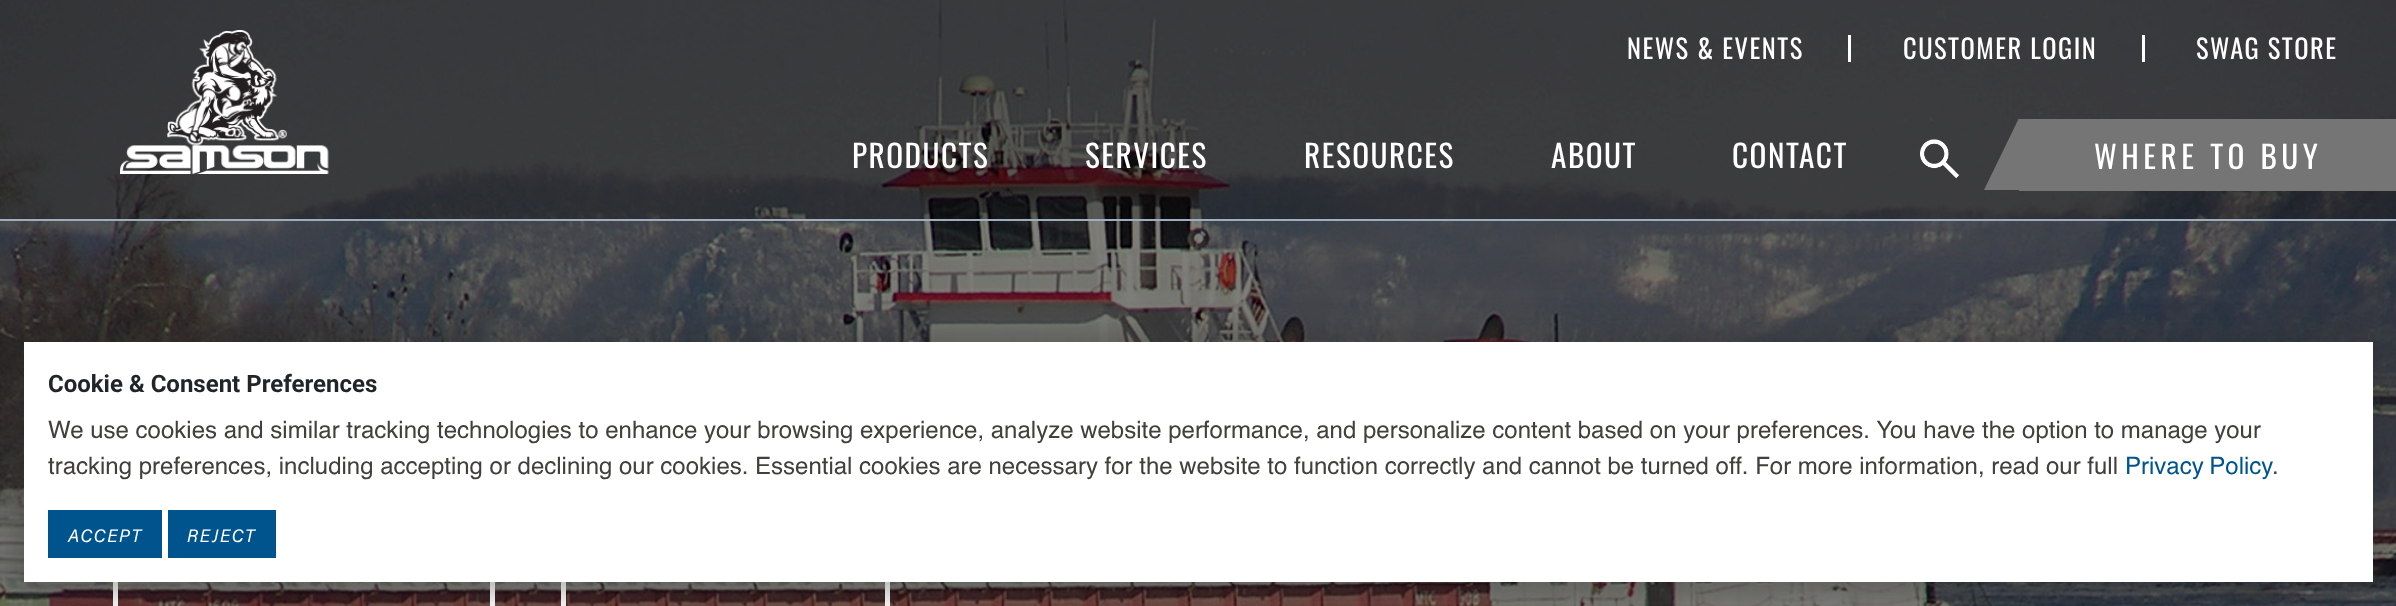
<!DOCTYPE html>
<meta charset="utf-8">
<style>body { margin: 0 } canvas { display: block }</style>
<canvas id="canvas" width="2396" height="606"></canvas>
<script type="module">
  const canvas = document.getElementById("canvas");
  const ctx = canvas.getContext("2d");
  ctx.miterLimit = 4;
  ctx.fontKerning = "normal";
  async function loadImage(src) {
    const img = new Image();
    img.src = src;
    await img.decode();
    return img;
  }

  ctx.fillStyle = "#ffffff";
  ctx.fillRect(0, 0, 2396, 606);
  ctx.drawImage(await loadImage("img1.png"), 0, 0, 2396, 606);
  ctx.strokeStyle = "#ffffff";
  ctx.lineWidth = 5;
  ctx.strokeRect(115.5, 575.5, 377, 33);
  ctx.strokeRect(563.5, 575.5, 324, 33);
  ctx.fillStyle = "rgba(0, 0, 0, 0.3)";
  ctx.fillRect(0, 0, 2396, 219);
  ctx.fillStyle = "#9faebe";
  ctx.fillRect(0, 219, 2396, 2);
  ctx.drawImage(await loadImage("img2.png"), 120, 30, 209, 144);
  ctx.fillStyle = "#ffffff";
  ctx.fillRect(1848, 35, 3, 27);
  ctx.letterSpacing = "1.5px";
  ctx.font = "26.5px Oswald";
  ctx.fillText("NEWS & EVENTS", 1627, 59);
  ctx.fillRect(2142, 35, 3, 27);
  ctx.fillText("CUSTOMER LOGIN", 1903, 59);
  ctx.fillText("SWAG STORE", 2196, 59);
  ctx.font = "31.25px Oswald";
  ctx.fillText("PRODUCTS", 852, 168);
  ctx.fillText("SERVICES", 1085, 168);
  ctx.fillText("RESOURCES", 1304, 168);
  ctx.fillText("ABOUT", 1551, 168);
  ctx.fillText("CONTACT", 1732, 168);
  ctx.drawImage(await loadImage("img3.png"), 1920, 139, 39, 40);
  ctx.fillStyle = "#757575";
  ctx.fillRect(2019, 119, 377, 72);
  ctx.beginPath();
  ctx.moveTo(2019, 118);
  ctx.lineTo(2019, 190);
  ctx.lineTo(1984, 190);
  ctx.closePath();
  ctx.fill();
  ctx.letterSpacing = "4.5px";
  ctx.fillStyle = "#ffffff";
  ctx.fillText("WHERE TO BUY", 2094, 169);
  ctx.fillStyle = "rgba(51, 51, 51, 0.1)";
  ctx.filter = "blur(42px)";
  ctx.beginPath();
  ctx.rect(24, 342, 2349, 240);
  ctx.fill();
  ctx.filter = "none";
  ctx.fillStyle = "rgba(51, 51, 51, 0.3)";
  ctx.filter = "blur(12px)";
  ctx.beginPath();
  ctx.rect(12, 330, 2373, 264);
  ctx.fill();
  ctx.filter = "none";
  ctx.fillStyle = "#ffffff";
  ctx.fillRect(24, 342, 2349, 240);
  ctx.letterSpacing = "0px";
  ctx.font = "bold 24px Roboto";
  ctx.fillStyle = "#212529";
  ctx.fillText("Cookie & Consent Preferences", 48, 392);
  ctx.font = "24px Helvetica";
  ctx.fillStyle = "#41403b";
  ctx.fillText("We use cookies and similar tracking technologies to enhance your browsing experience, analyze website performance, and personalize content based on your preferences. You have the option to manage your", 48, 438);
  ctx.fillText("tracking preferences, including accepting or declining our cookies. Essential cookies are necessary for the website to function correctly and cannot be turned off. For more information, read our full", 48, 474);
  ctx.wordSpacing = "-1px";
  ctx.fillStyle = "#00548e";
  ctx.fillText("Privacy Policy", 2125, 474);
  ctx.wordSpacing = "0px";
  ctx.fillStyle = "#41403b";
  ctx.fillText(".", 2272, 474);
  ctx.fillStyle = "#00548e";
  ctx.fillRect(48, 510, 114, 48);
  ctx.letterSpacing = "1.5px";
  ctx.font = "italic 18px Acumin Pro";
  ctx.fillStyle = "#ffffff";
  ctx.fillText("ACCEPT", 68, 542);
  ctx.fillStyle = "#00548e";
  ctx.fillRect(168, 510, 108, 48);
  ctx.fillStyle = "#ffffff";
  ctx.fillText("REJECT", 187, 542);
</script>
